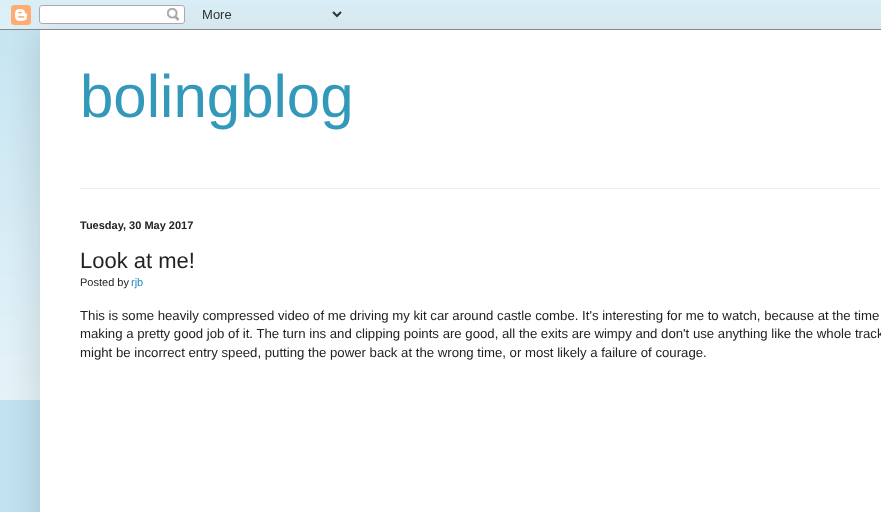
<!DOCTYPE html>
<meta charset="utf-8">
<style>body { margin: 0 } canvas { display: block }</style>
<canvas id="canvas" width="881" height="512"></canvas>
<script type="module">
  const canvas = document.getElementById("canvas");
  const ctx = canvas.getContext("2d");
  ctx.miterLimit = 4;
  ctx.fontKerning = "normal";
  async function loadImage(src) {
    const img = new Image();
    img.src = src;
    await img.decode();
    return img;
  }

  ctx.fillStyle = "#c2e4f2";
  ctx.fillRect(0, 0, 881, 512);
  ctx.drawImage(await loadImage("img2.png"), 0, 10, 881, 390);
  ctx.fillStyle = "rgba(0, 0, 0, 0.15)";
  ctx.filter = "blur(20px)";
  ctx.beginPath();
  ctx.rect(40, 30, 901, 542);
  ctx.fill();
  ctx.filter = "none";
  ctx.drawImage(await loadImage("img1.png"), 0, 0, 881, 30);
  ctx.fillStyle = "#ffffff";
  ctx.fillRect(40, 30, 841, 482);
  ctx.font = "60px Liberation Sans";
  ctx.fillStyle = "#3399bb";
  ctx.fillText("bolingblog", 80, 117);
  ctx.fillStyle = "#eeeeee";
  ctx.fillRect(80, 188, 801, 1);
  ctx.font = "bold 11px Liberation Sans";
  ctx.fillStyle = "#222222";
  ctx.fillText("Tuesday, 30 May 2017", 80, 229);
  ctx.font = "22px Liberation Sans";
  ctx.fillText("Look at me!", 80, 268);
  ctx.font = "11px Liberation Sans";
  ctx.fillText("Posted by", 80, 286);
  ctx.fillStyle = "#2288bb";
  ctx.fillText("rjb", 131, 286);
  ctx.font = "13.2px Liberation Sans";
  ctx.fillStyle = "#222222";
  ctx.fillText("This is some heavily compressed video of me driving my kit car around castle combe. It's interesting for me to watch, because at the time", 80, 320);
  ctx.fillText("making a pretty good job of it. The turn ins and clipping points are good, all the exits are wimpy and don't use anything like the whole track", 80, 338);
  ctx.fillText("might be incorrect entry speed, putting the power back at the wrong time, or most likely a failure of courage.", 80, 357);
</script>
